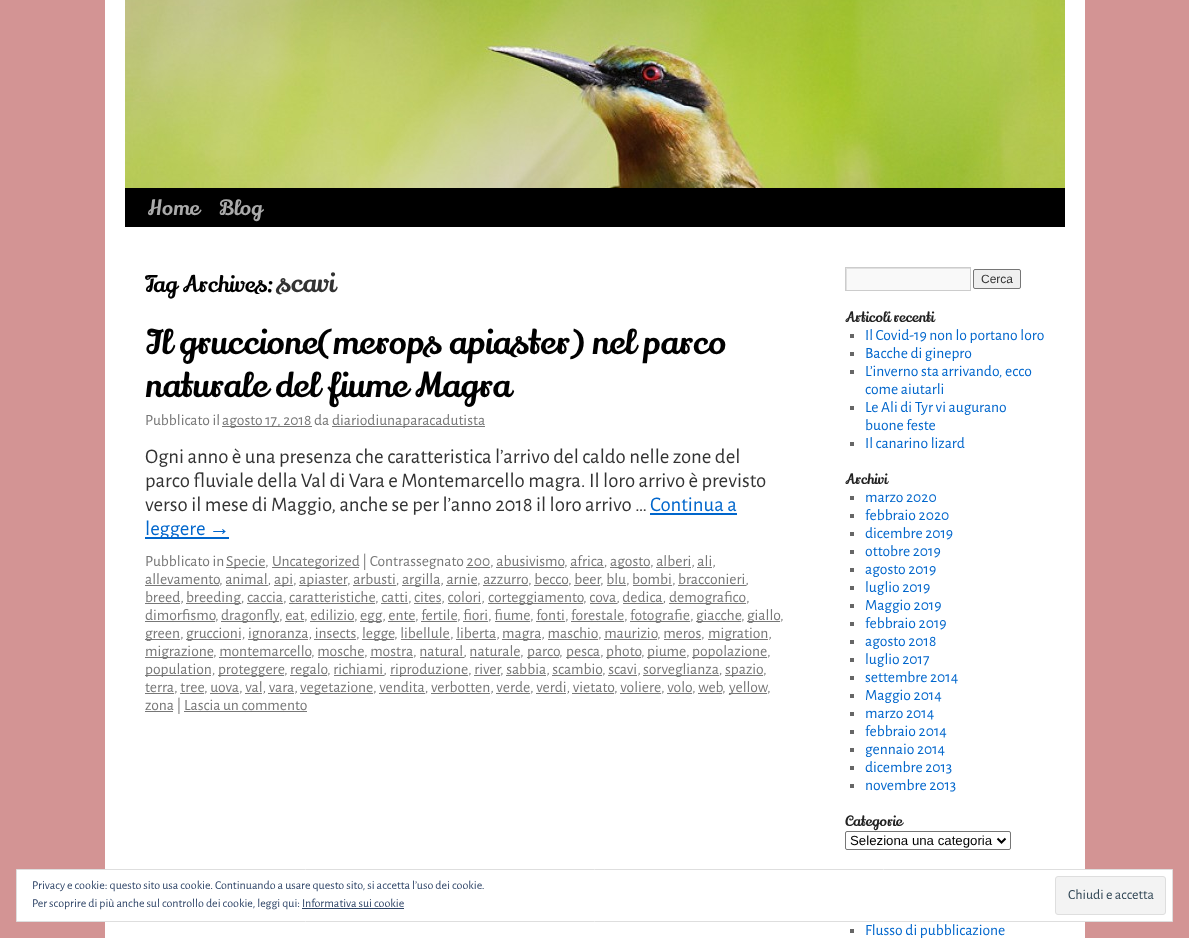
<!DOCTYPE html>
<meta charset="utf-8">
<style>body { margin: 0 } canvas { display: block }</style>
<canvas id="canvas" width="1189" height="938"></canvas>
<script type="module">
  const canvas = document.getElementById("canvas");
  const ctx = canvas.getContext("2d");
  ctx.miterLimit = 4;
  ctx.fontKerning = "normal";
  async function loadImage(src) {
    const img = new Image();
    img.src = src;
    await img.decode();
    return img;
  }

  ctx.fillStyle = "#d39494";
  ctx.fillRect(0, 0, 1189, 938);
  ctx.fillStyle = "#ffffff";
  ctx.fillRect(105, 0, 980, 938);
  ctx.fillStyle = "#000000";
  ctx.fillRect(125, 188, 940, 39);
  ctx.drawImage(await loadImage("img1.png"), 125, 0, 940, 188);
  ctx.font = "20.8px Lily Script One";
  ctx.fillStyle = "#aaaaaa";
  ctx.fillText("Home", 147, 215);
  ctx.fillText("Blog", 219, 215);
  ctx.font = "22.5px Lily Script One";
  ctx.fillStyle = "#000000";
  ctx.fillText("Tag Archives:", 145, 292);
  ctx.font = "26px Lily Script One";
  ctx.fillStyle = "#333333";
  ctx.fillText("scavi", 277, 292);
  ctx.font = "33.6px Lily Script One";
  ctx.fillStyle = "#000000";
  ctx.fillText("Il gruccione(merops apiaster) nel parco", 145, 354);
  ctx.fillText("naturale del fiume Magra", 145, 397);
  ctx.font = "15.6px Alegreya Sans";
  ctx.fillStyle = "#777777";
  ctx.fillText("Pubblicato il", 145, 425);
  ctx.fillRect(222, 426, 90, 1);
  ctx.fillText("agosto 17, 2018 da", 222, 425);
  ctx.fillRect(332, 426, 153, 1);
  ctx.fillText("diariodiunaparacadutista", 332, 425);
  ctx.font = "20.8px Alegreya Sans";
  ctx.fillStyle = "#333333";
  ctx.fillText("Ogni anno è una presenza che caratteristica l’arrivo del caldo nelle zone del", 145, 463);
  ctx.fillText("parco fluviale della Val di Vara e Montemarcello magra. Il loro arrivo è previsto", 145, 487);
  ctx.fillText("verso il mese di Maggio, anche se per l’anno 2018 il loro arrivo …", 145, 511);
  ctx.fillStyle = "#0066cc";
  ctx.fillText("Continua a", 650, 511);
  ctx.fillRect(650, 513, 87, 2);
  ctx.fillRect(145, 537, 84, 2);
  ctx.fillText("leggere", 145, 535);
  ctx.font = "20.8px Liberation Sans";
  ctx.fillText("→", 209, 535);
  ctx.font = "15.6px Alegreya Sans";
  ctx.fillStyle = "#777777";
  ctx.fillText("Pubblicato in", 145, 566);
  ctx.fillRect(226, 567, 39, 1);
  ctx.fillText("Specie", 226, 566);
  ctx.fillText(",", 265, 566);
  ctx.fillRect(272, 567, 87, 1);
  ctx.fillText("Uncategorized | Contrassegnato 200, abusivismo", 272, 566);
  ctx.fillText(", africa,", 564, 566);
  ctx.fillRect(496, 567, 68, 1);
  ctx.fillRect(570, 567, 34, 1);
  ctx.fillRect(610, 567, 40, 1);
  ctx.fillText("agosto", 610, 566);
  ctx.fillText(", alberi, ali,", 650, 566);
  ctx.fillRect(656, 567, 35, 1);
  ctx.fillRect(697, 567, 15, 1);
  ctx.fillText("allevamento", 145, 584);
  ctx.fillRect(145, 585, 74, 1);
  ctx.fillText(", animal,", 219, 584);
  ctx.fillRect(226, 585, 42, 1);
  ctx.fillRect(274, 585, 19, 1);
  ctx.fillText("api,", 274, 584);
  ctx.fillRect(299, 585, 48, 1);
  ctx.fillText("apiaster", 299, 584);
  ctx.fillText(", arbusti,", 347, 584);
  ctx.fillRect(353, 585, 43, 1);
  ctx.fillRect(402, 585, 38, 1);
  ctx.fillText("argilla, arnie", 402, 584);
  ctx.fillRect(466, 567, 24, 1);
  ctx.fillText(", azzurro", 477, 584);
  ctx.fillRect(446, 585, 31, 1);
  ctx.fillRect(483, 585, 45, 1);
  ctx.fillText(", becco", 528, 584);
  ctx.fillRect(534, 585, 34, 1);
  ctx.fillText(", beer", 568, 584);
  ctx.fillRect(574, 585, 26, 1);
  ctx.fillText(", blu, bombi, bracconieri,", 600, 584);
  ctx.fillRect(607, 585, 19, 1);
  ctx.fillRect(633, 585, 39, 1);
  ctx.fillRect(678, 585, 68, 1);
  ctx.fillRect(145, 603, 35, 1);
  ctx.fillText("breed,", 145, 602);
  ctx.fillRect(186, 603, 55, 1);
  ctx.fillText("breeding, caccia, caratteristiche", 186, 602);
  ctx.fillRect(247, 603, 36, 1);
  ctx.fillRect(289, 603, 86, 1);
  ctx.fillText(", catti, cites, colori,", 375, 602);
  ctx.fillRect(381, 603, 27, 1);
  ctx.fillRect(414, 603, 27, 1);
  ctx.fillRect(448, 603, 33, 1);
  ctx.fillRect(488, 603, 95, 1);
  ctx.fillText("corteggiamento", 488, 602);
  ctx.fillText(", cova, dedica,", 583, 602);
  ctx.fillRect(590, 603, 27, 1);
  ctx.fillRect(623, 603, 40, 1);
  ctx.fillRect(669, 603, 77, 1);
  ctx.fillText("demografico", 669, 602);
  ctx.fillText(",", 746, 602);
  ctx.fillText("dimorfismo", 145, 620);
  ctx.fillText(",", 215, 620);
  ctx.fillRect(145, 621, 70, 1);
  ctx.fillRect(221, 621, 58, 1);
  ctx.fillText("dragonfly", 221, 620);
  ctx.fillText(", eat", 279, 620);
  ctx.fillRect(285, 621, 19, 1);
  ctx.fillText(", edilizio", 304, 620);
  ctx.fillText(",", 354, 620);
  ctx.fillRect(310, 621, 44, 1);
  ctx.fillRect(360, 621, 22, 1);
  ctx.fillText("egg, ente", 360, 620);
  ctx.fillRect(388, 621, 27, 1);
  ctx.fillText(", fertile", 415, 620);
  ctx.fillRect(421, 621, 36, 1);
  ctx.fillText(", fiori, fiume", 457, 620);
  ctx.fillRect(463, 621, 25, 1);
  ctx.fillRect(495, 621, 35, 1);
  ctx.fillText(", fonti, forestale", 530, 620);
  ctx.fillRect(536, 621, 29, 1);
  ctx.fillText(",", 624, 620);
  ctx.fillRect(571, 621, 53, 1);
  ctx.fillRect(630, 621, 60, 1);
  ctx.fillText("fotografie", 630, 620);
  ctx.fillText(",", 690, 620);
  ctx.fillRect(696, 621, 45, 1);
  ctx.fillText("giacche", 696, 620);
  ctx.fillText(",", 741, 620);
  ctx.fillRect(747, 621, 33, 1);
  ctx.fillText("giallo", 747, 620);
  ctx.fillText(",", 780, 620);
  ctx.fillRect(145, 639, 35, 1);
  ctx.fillText("green,", 145, 638);
  ctx.fillRect(186, 639, 55, 1);
  ctx.fillText("gruccioni,", 186, 638);
  ctx.fillRect(248, 639, 60, 1);
  ctx.fillText("ignoranza, insects,", 248, 638);
  ctx.fillRect(314, 639, 42, 1);
  ctx.fillRect(362, 639, 32, 1);
  ctx.fillText("legge", 362, 638);
  ctx.fillText(", libellule", 394, 638);
  ctx.fillRect(401, 639, 49, 1);
  ctx.fillText(", liberta,", 450, 638);
  ctx.fillRect(456, 639, 40, 1);
  ctx.fillRect(502, 639, 39, 1);
  ctx.fillText("magra, maschio", 502, 638);
  ctx.fillRect(548, 639, 50, 1);
  ctx.fillText(", maurizio", 598, 638);
  ctx.fillText(", meros,", 657, 638);
  ctx.fillRect(604, 639, 53, 1);
  ctx.fillRect(664, 639, 37, 1);
  ctx.fillRect(708, 639, 60, 1);
  ctx.fillText("migration,", 708, 638);
  ctx.fillRect(145, 657, 68, 1);
  ctx.fillText("migrazione", 145, 656);
  ctx.fillText(", montemarcello", 213, 656);
  ctx.fillRect(219, 657, 92, 1);
  ctx.fillText(", mosche", 311, 656);
  ctx.fillRect(318, 657, 46, 1);
  ctx.fillText(", mostra, natural, naturale", 364, 656);
  ctx.fillRect(370, 657, 43, 1);
  ctx.fillRect(420, 657, 44, 1);
  ctx.fillText(",", 520, 656);
  ctx.fillRect(470, 657, 50, 1);
  ctx.fillRect(527, 657, 32, 1);
  ctx.fillText("parco", 527, 656);
  ctx.fillText(",", 559, 656);
  ctx.fillRect(566, 657, 34, 1);
  ctx.fillText("pesca,", 566, 656);
  ctx.fillRect(606, 657, 35, 1);
  ctx.fillText("photo", 606, 656);
  ctx.fillText(",", 641, 656);
  ctx.fillRect(647, 657, 39, 1);
  ctx.fillText("piume", 647, 656);
  ctx.fillText(",", 686, 656);
  ctx.fillRect(692, 657, 75, 1);
  ctx.fillText("popolazione", 692, 656);
  ctx.fillText(",", 767, 656);
  ctx.fillRect(145, 675, 66, 1);
  ctx.fillText("population,", 145, 674);
  ctx.fillRect(218, 675, 66, 1);
  ctx.fillText("proteggere", 218, 674);
  ctx.fillText(",", 284, 674);
  ctx.fillRect(290, 675, 37, 1);
  ctx.fillText("regalo", 290, 674);
  ctx.fillText(", richiami,", 327, 674);
  ctx.fillRect(334, 675, 50, 1);
  ctx.fillRect(390, 675, 78, 1);
  ctx.fillText("riproduzione", 390, 674);
  ctx.fillText(", river", 468, 674);
  ctx.fillRect(474, 675, 26, 1);
  ctx.fillText(", sabbia, scambio", 500, 674);
  ctx.fillRect(506, 675, 40, 1);
  ctx.fillRect(552, 675, 50, 1);
  ctx.fillText(", scavi,", 602, 674);
  ctx.fillRect(608, 675, 29, 1);
  ctx.fillRect(643, 675, 76, 1);
  ctx.fillText("sorveglianza,", 643, 674);
  ctx.fillRect(725, 675, 38, 1);
  ctx.fillText("spazio", 725, 674);
  ctx.fillText(",", 763, 674);
  ctx.fillRect(145, 693, 29, 1);
  ctx.fillText("terra, tree", 145, 692);
  ctx.fillRect(180, 693, 24, 1);
  ctx.fillText(", uova, val, vara,", 204, 692);
  ctx.fillRect(210, 693, 29, 1);
  ctx.fillRect(245, 693, 17, 1);
  ctx.fillRect(268, 693, 26, 1);
  ctx.fillRect(300, 693, 73, 1);
  ctx.fillText("vegetazione", 300, 692);
  ctx.fillText(", vendita, verbotten, verde", 373, 692);
  ctx.fillRect(379, 693, 46, 1);
  ctx.fillRect(431, 693, 59, 1);
  ctx.fillRect(496, 693, 34, 1);
  ctx.fillText(", verdi, vietato", 530, 692);
  ctx.fillRect(536, 693, 30, 1);
  ctx.fillRect(572, 693, 42, 1);
  ctx.fillText(", voliere", 614, 692);
  ctx.fillRect(620, 693, 41, 1);
  ctx.fillText(", volo", 661, 692);
  ctx.fillRect(667, 693, 25, 1);
  ctx.fillText(", web", 692, 692);
  ctx.fillText(",", 722, 692);
  ctx.fillRect(698, 693, 24, 1);
  ctx.fillRect(729, 693, 38, 1);
  ctx.fillText("yellow", 729, 692);
  ctx.fillText(",", 767, 692);
  ctx.fillRect(145, 711, 28, 1);
  ctx.fillText("zona | Lascia un commento", 145, 710);
  ctx.fillRect(184, 711, 123, 1);
  ctx.fillStyle = "#f9f9f9";
  ctx.fillRect(847, 269, 123, 21);
  ctx.save();
  ctx.beginPath();
  ctx.rect(846, 268, 124, 22);
  ctx.clip();
  ctx.fillStyle = "#e0e0e0";
  ctx.beginPath();
  ctx.moveTo(747, 169);
  ctx.lineTo(1069, 169);
  ctx.lineTo(1069, 389);
  ctx.lineTo(747, 389);
  ctx.closePath();
  ctx.moveTo(847, 269);
  ctx.lineTo(971, 269);
  ctx.lineTo(971, 291);
  ctx.lineTo(847, 291);
  ctx.closePath();
  ctx.fill("evenodd");
  ctx.restore();
  ctx.strokeStyle = "#cccccc";
  ctx.strokeRect(845.5, 267.5, 125, 23);
  ctx.fillStyle = "#efefef";
  ctx.beginPath();
  ctx.roundRect(973.5, 269.5, 47, 19, 1.5);
  ctx.fill();
  ctx.strokeStyle = "#767676";
  ctx.stroke();
  ctx.font = "12px Liberation Sans";
  ctx.fillStyle = "#333333";
  ctx.fillText("Cerca", 981, 283);
  ctx.font = "14px Lily Script One";
  ctx.fillStyle = "#222222";
  ctx.fillText("Articoli recenti", 845, 322);
  ctx.fillStyle = "#666666";
  ctx.fillRect(850, 334, 4, 4);
  ctx.font = "15.6px Alegreya Sans";
  ctx.fillStyle = "#0066cc";
  ctx.fillText("Il Covid-19 non lo portano loro", 865, 340);
  ctx.fillStyle = "#666666";
  ctx.fillRect(850, 352, 4, 4);
  ctx.fillStyle = "#0066cc";
  ctx.fillText("Bacche di ginepro", 865, 358);
  ctx.fillStyle = "#666666";
  ctx.fillRect(850, 370, 4, 4);
  ctx.fillStyle = "#0066cc";
  ctx.fillText("L’inverno sta arrivando, ecco", 865, 376);
  ctx.fillText("come aiutarli", 865, 394);
  ctx.fillStyle = "#666666";
  ctx.fillRect(850, 406, 4, 4);
  ctx.fillStyle = "#0066cc";
  ctx.fillText("Le Ali di Tyr vi augurano", 865, 412);
  ctx.fillText("buone feste", 865, 430);
  ctx.fillStyle = "#666666";
  ctx.fillRect(850, 442, 4, 4);
  ctx.fillStyle = "#0066cc";
  ctx.fillText("Il canarino lizard", 865, 448);
  ctx.font = "14px Lily Script One";
  ctx.fillStyle = "#222222";
  ctx.fillText("Archivi", 845, 484);
  ctx.fillStyle = "#666666";
  ctx.fillRect(850, 496, 4, 4);
  ctx.font = "15.6px Alegreya Sans";
  ctx.fillStyle = "#0066cc";
  ctx.fillText("marzo 2020", 865, 502);
  ctx.fillStyle = "#666666";
  ctx.fillRect(850, 514, 4, 4);
  ctx.fillStyle = "#0066cc";
  ctx.fillText("febbraio 2020", 865, 520);
  ctx.fillStyle = "#666666";
  ctx.fillRect(850, 532, 4, 4);
  ctx.fillStyle = "#0066cc";
  ctx.fillText("dicembre 2019", 865, 538);
  ctx.fillStyle = "#666666";
  ctx.fillRect(850, 550, 4, 4);
  ctx.fillStyle = "#0066cc";
  ctx.fillText("ottobre 2019", 865, 556);
  ctx.fillStyle = "#666666";
  ctx.fillRect(850, 568, 4, 4);
  ctx.fillStyle = "#0066cc";
  ctx.fillText("agosto 2019", 865, 574);
  ctx.fillStyle = "#666666";
  ctx.fillRect(850, 586, 4, 4);
  ctx.fillStyle = "#0066cc";
  ctx.fillText("luglio 2019", 865, 592);
  ctx.fillStyle = "#666666";
  ctx.fillRect(850, 604, 4, 4);
  ctx.fillStyle = "#0066cc";
  ctx.fillText("Maggio 2019", 865, 610);
  ctx.fillStyle = "#666666";
  ctx.fillRect(850, 622, 4, 4);
  ctx.fillStyle = "#0066cc";
  ctx.fillText("febbraio 2019", 865, 628);
  ctx.fillStyle = "#666666";
  ctx.fillRect(850, 640, 4, 4);
  ctx.fillStyle = "#0066cc";
  ctx.fillText("agosto 2018", 865, 646);
  ctx.fillStyle = "#666666";
  ctx.fillRect(850, 658, 4, 4);
  ctx.fillStyle = "#0066cc";
  ctx.fillText("luglio 2017", 865, 664);
  ctx.fillStyle = "#666666";
  ctx.fillRect(850, 676, 4, 4);
  ctx.fillStyle = "#0066cc";
  ctx.fillText("settembre 2014", 865, 682);
  ctx.fillStyle = "#666666";
  ctx.fillRect(850, 694, 4, 4);
  ctx.fillStyle = "#0066cc";
  ctx.fillText("Maggio 2014", 865, 700);
  ctx.fillStyle = "#666666";
  ctx.fillRect(850, 712, 4, 4);
  ctx.fillStyle = "#0066cc";
  ctx.fillText("marzo 2014", 865, 718);
  ctx.fillStyle = "#666666";
  ctx.fillRect(850, 730, 4, 4);
  ctx.fillStyle = "#0066cc";
  ctx.fillText("febbraio 2014", 865, 736);
  ctx.fillStyle = "#666666";
  ctx.fillRect(850, 748, 4, 4);
  ctx.fillStyle = "#0066cc";
  ctx.fillText("gennaio 2014", 865, 754);
  ctx.fillStyle = "#666666";
  ctx.fillRect(850, 766, 4, 4);
  ctx.fillStyle = "#0066cc";
  ctx.fillText("dicembre 2013", 865, 772);
  ctx.fillStyle = "#666666";
  ctx.fillRect(850, 784, 4, 4);
  ctx.fillStyle = "#0066cc";
  ctx.fillText("novembre 2013", 865, 790);
  ctx.font = "14px Lily Script One";
  ctx.fillStyle = "#222222";
  ctx.fillText("Categorie", 845, 826);
  ctx.beginPath();
  ctx.roundRect(845.5, 831.5, 165, 18, 1.5);
  ctx.stroke();
  ctx.beginPath();
  ctx.moveTo(997.5, 838.5);
  ctx.lineTo(1001.5, 842.5);
  ctx.lineTo(1005.5, 838.5);
  ctx.strokeStyle = "#000000";
  ctx.lineWidth = 2;
  ctx.stroke();
  ctx.font = "13.25px Liberation Sans";
  ctx.fillStyle = "#000000";
  ctx.fillText("Seleziona una categoria", 850, 845);
  ctx.fillStyle = "#666666";
  ctx.fillRect(850, 929, 4, 4);
  ctx.font = "15.6px Alegreya Sans";
  ctx.fillStyle = "#0066cc";
  ctx.fillText("Flusso di pubblicazione", 865, 935);
  ctx.fillStyle = "#ffffff";
  ctx.beginPath();
  ctx.rect(16.5, 869.5, 1156, 52);
  ctx.fill();
  ctx.strokeStyle = "#dedede";
  ctx.lineWidth = 1;
  ctx.stroke();
  ctx.font = "12px Alegreya Sans";
  ctx.fillStyle = "#2e4467";
  ctx.fillText("Privacy e cookie: questo sito usa cookie. Continuando a usare questo sito, si accetta l’uso dei cookie.", 32, 889);
  ctx.fillStyle = "#f3f3f3";
  ctx.beginPath();
  ctx.roundRect(1055.5, 876.5, 110, 38, 2.5);
  ctx.fill();
  ctx.stroke();
  ctx.font = "14px Alegreya Sans";
  ctx.fillStyle = "#2e4453";
  ctx.fillText("Chiudi e accetta", 1068, 899);
  ctx.font = "12px Alegreya Sans";
  ctx.fillStyle = "#2e4467";
  ctx.fillText("Per scoprire di più anche sul controllo dei cookie, leggi qui: Informativa sui cookie", 32, 907);
  ctx.fillRect(302, 908, 102, 1);
</script>
